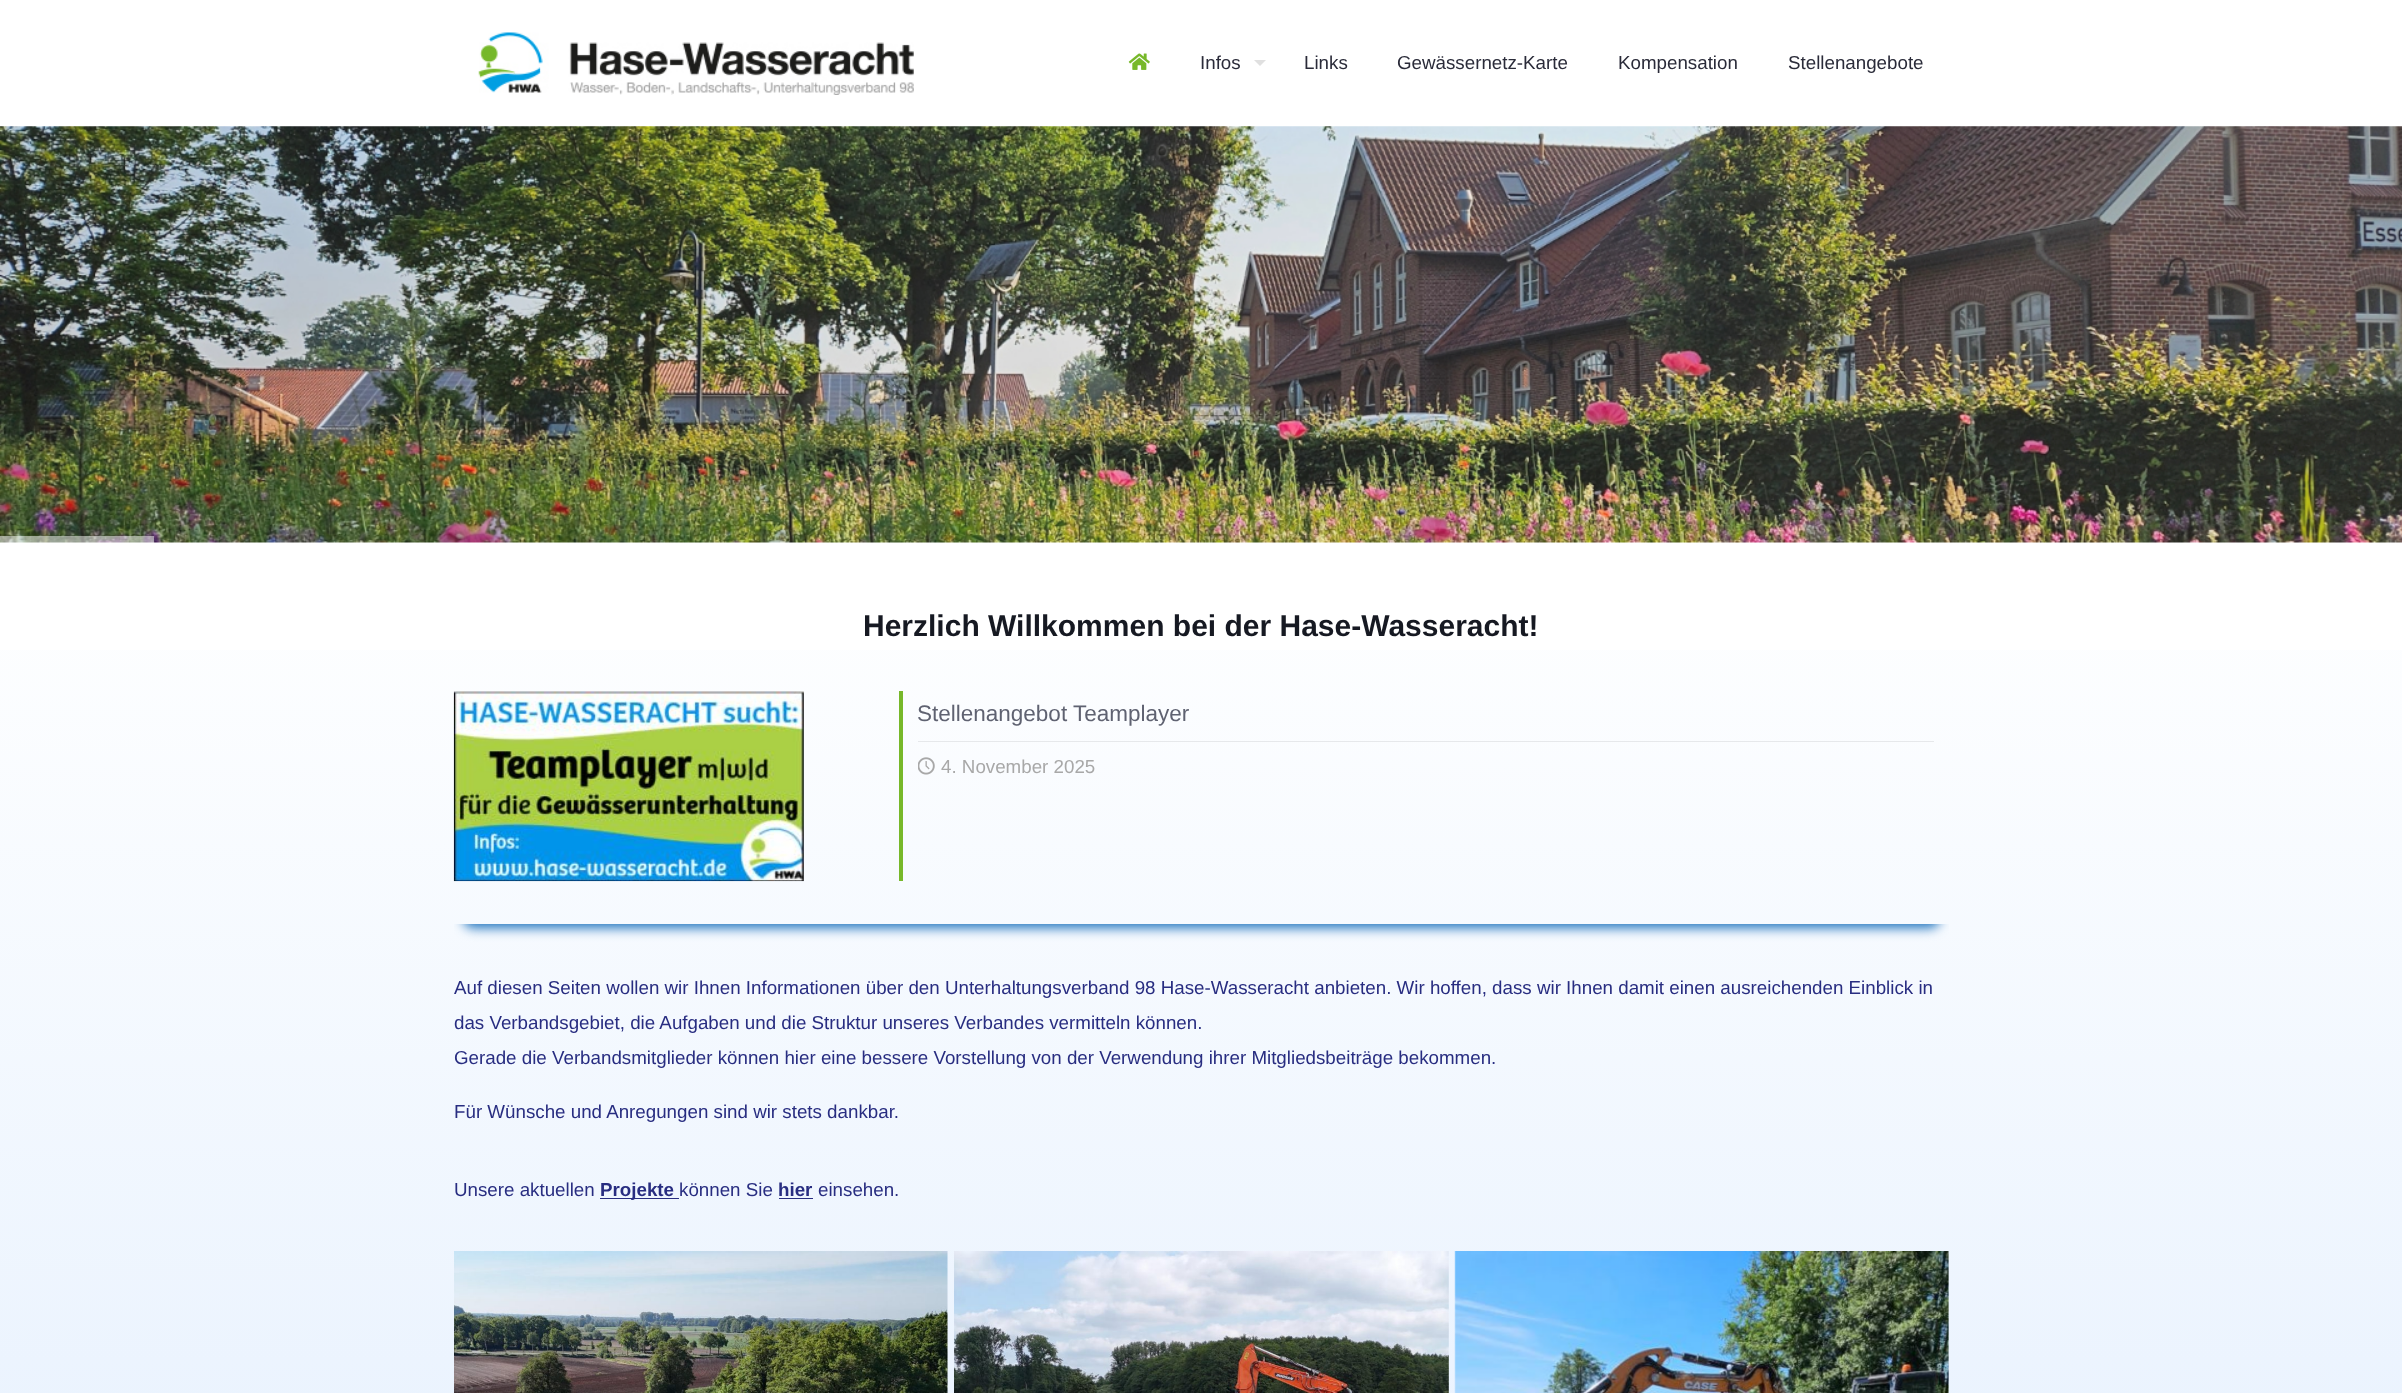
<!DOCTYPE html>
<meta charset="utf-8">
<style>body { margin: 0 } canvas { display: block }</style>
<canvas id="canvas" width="2402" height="1393"></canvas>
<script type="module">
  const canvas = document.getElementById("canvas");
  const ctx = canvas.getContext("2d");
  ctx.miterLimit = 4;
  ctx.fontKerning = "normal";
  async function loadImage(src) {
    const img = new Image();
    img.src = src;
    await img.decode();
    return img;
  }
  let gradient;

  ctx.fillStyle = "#ffffff";
  ctx.fillRect(0, 0, 2402, 1393);
  ctx.drawImage(await loadImage("img1.png"), 478, 32, 436, 63);
  ctx.drawImage(await loadImage("img2.png"), 1128, 53, 22, 17);
  ctx.font = "18.75px Liberation Sans";
  ctx.fillStyle = "#2a2b39";
  ctx.fillText("Infos", 1200, 69);
  ctx.fillStyle = "#e0e0e0";
  ctx.beginPath();
  ctx.moveTo(1254, 60);
  ctx.lineTo(1266, 60);
  ctx.lineTo(1260, 66);
  ctx.closePath();
  ctx.fill();
  ctx.fillStyle = "#2a2b39";
  ctx.fillText("Links", 1304, 69);
  ctx.fillText("Gewässernetz-Karte", 1397, 69);
  ctx.fillText("Kompensation", 1618, 69);
  ctx.fillText("Stellenangebote", 1788, 69);
  ctx.drawImage(await loadImage("img3.png"), 0, 126, 2402, 417);
  ctx.fillStyle = "rgba(255, 255, 255, 0.5)";
  ctx.fillRect(0, 536, 154, 7);
  gradient = ctx.createLinearGradient(1201, 542, 1201, 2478);
  gradient.addColorStop(0, "#ffffff");
  gradient.addColorStop(1, "#d2e5fd");
  ctx.fillStyle = gradient;
  ctx.fillRect(0, 650, 2402, 743);
  ctx.font = "bold 30px Liberation Sans";
  ctx.fillStyle = "#161922";
  ctx.fillText("Herzlich Willkommen bei der Hase-Wasseracht!", 863, 636);
  ctx.fillStyle = "#77b82a";
  ctx.fillRect(899, 691, 4, 190);
  ctx.drawImage(await loadImage("img4.png"), 453, 691, 351, 191);
  ctx.font = "22.5px Liberation Sans";
  ctx.fillStyle = "#5f6271";
  ctx.fillText("Stellenangebot Teamplayer", 917, 721);
  ctx.fillStyle = "#e6e8eb";
  ctx.fillRect(918, 741, 1016, 1);
  ctx.drawImage(await loadImage("img5.png"), 918, 757, 17, 18);
  ctx.font = "18.75px Liberation Sans";
  ctx.fillStyle = "#a8a8a8";
  ctx.fillText("4. November 2025", 941, 773);
  ctx.save();
  ctx.beginPath();
  ctx.rect(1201, 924, 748, 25);
  ctx.clip();
  ctx.fillStyle = "#1e73be";
  ctx.filter = "blur(6px)";
  ctx.beginPath();
  ctx.roundRect(438, 908, 1502, 20, 10);
  ctx.fill();
  ctx.filter = "none";
  ctx.restore();
  ctx.save();
  ctx.beginPath();
  ctx.rect(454, 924, 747, 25);
  ctx.clip();
  ctx.fillStyle = "#1e73be";
  ctx.filter = "blur(6px)";
  ctx.beginPath();
  ctx.roundRect(463, 908, 1502, 20, 10);
  ctx.fill();
  ctx.filter = "none";
  ctx.restore();
  ctx.fillStyle = "#282d81";
  ctx.fillText("Auf diesen Seiten wollen wir Ihnen Informationen über den Unterhaltungsverband 98 Hase-Wasseracht anbieten. Wir hoffen, dass wir Ihnen damit einen ausreichenden Einblick in", 454, 994);
  ctx.fillText("das Verbandsgebiet, die Aufgaben und die Struktur unseres Verbandes vermitteln können.", 454, 1029);
  ctx.fillText("Gerade die Verbandsmitglieder können hier eine bessere Vorstellung von der Verwendung ihrer Mitgliedsbeiträge bekommen.", 454, 1064);
  ctx.fillText("Für Wünsche und Anregungen sind wir stets dankbar.", 454, 1118);
  ctx.fillText("Unsere aktuellen", 454, 1196);
  ctx.fillRect(600, 1198, 79, 1);
  ctx.font = "bold 18.75px Liberation Sans";
  ctx.fillText("Projekte", 600, 1196);
  ctx.font = "18.75px Liberation Sans";
  ctx.fillText("können Sie", 679, 1196);
  ctx.font = "bold 18.75px Liberation Sans";
  ctx.fillText("hier", 778, 1196);
  ctx.fillRect(779, 1198, 34, 1);
  ctx.font = "18.75px Liberation Sans";
  ctx.fillText("einsehen.", 818, 1196);
  ctx.drawImage(await loadImage("img6.png"), 454, 1251, 494, 142);
  ctx.drawImage(await loadImage("img7.png"), 954, 1251, 495, 142);
  ctx.drawImage(await loadImage("img8.png"), 1454, 1251, 495, 142);
</script>
